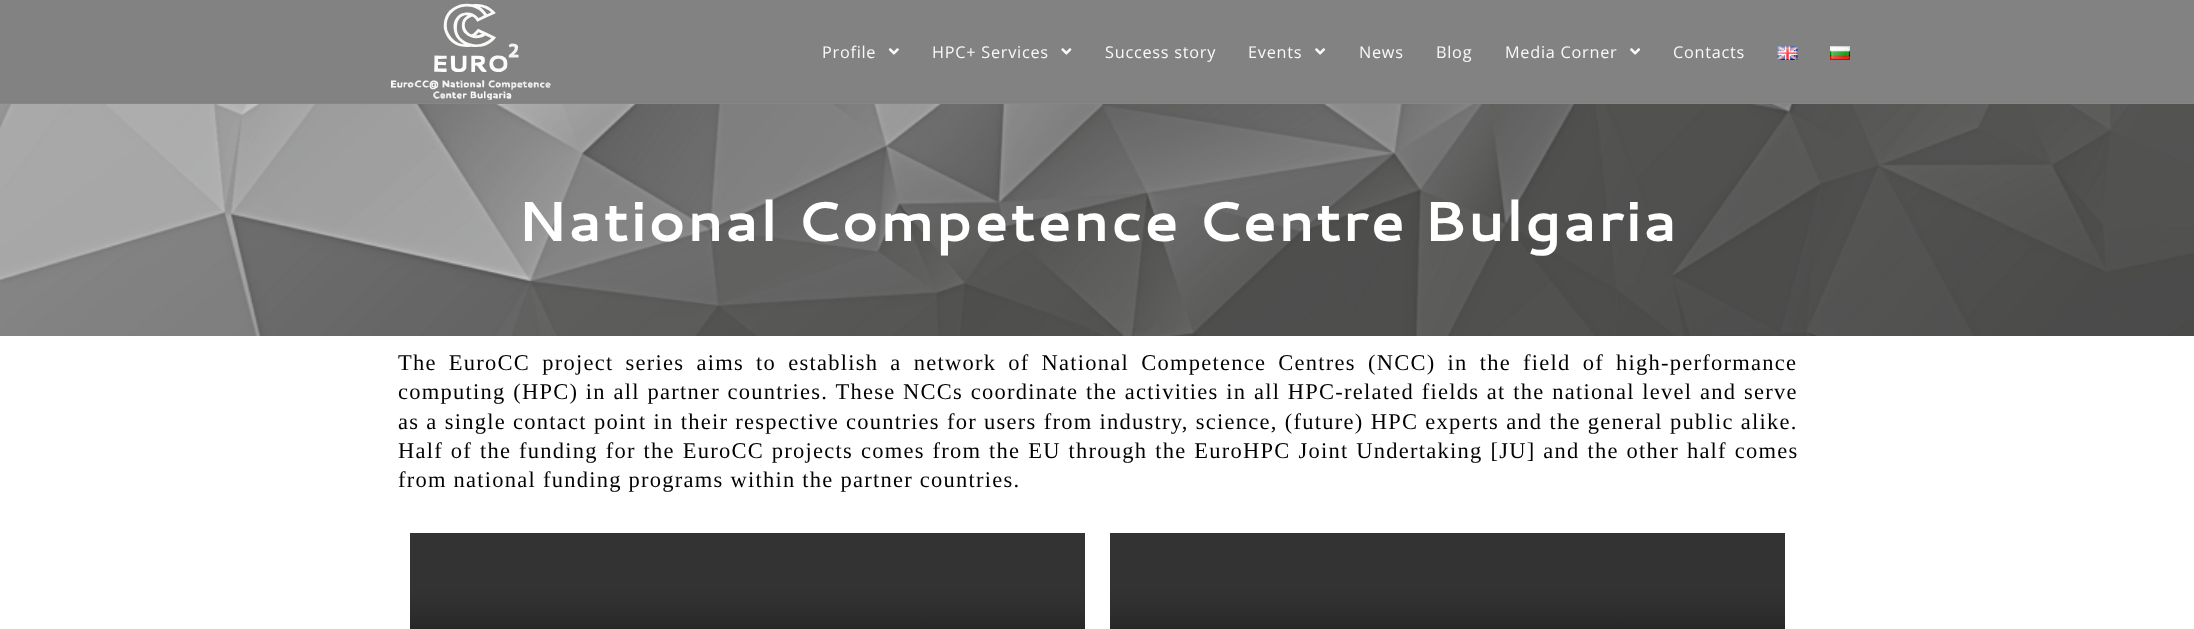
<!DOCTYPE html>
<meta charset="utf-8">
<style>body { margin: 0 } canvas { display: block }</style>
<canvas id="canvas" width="2194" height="629"></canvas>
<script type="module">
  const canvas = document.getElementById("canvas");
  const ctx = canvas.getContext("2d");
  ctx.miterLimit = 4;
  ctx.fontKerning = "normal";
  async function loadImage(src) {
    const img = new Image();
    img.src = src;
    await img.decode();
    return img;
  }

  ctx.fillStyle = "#ffffff";
  ctx.fillRect(0, 0, 2194, 629);
  ctx.fillStyle = "#828282";
  ctx.fillRect(0, 0, 2194, 103);
  ctx.fillStyle = "#b88701";
  ctx.fillRect(0, 103, 2194, 1);
  ctx.drawImage(await loadImage("img1.png"), 391, 3, 160, 97);
  ctx.letterSpacing = "0.75px";
  ctx.font = "16.25px Open Sans";
  ctx.fillStyle = "#f9f9f9";
  ctx.fillText("Profile", 822, 58);
  ctx.drawImage(await loadImage("img2.png"), 888, 48, 11, 7);
  ctx.fillText("HPC+ Services", 932, 58);
  ctx.drawImage(await loadImage("img3.png"), 1061, 48, 11, 7);
  ctx.fillText("Success story", 1105, 58);
  ctx.fillText("Events", 1248, 58);
  ctx.drawImage(await loadImage("img4.png"), 1315, 48, 11, 7);
  ctx.fillText("News", 1359, 58);
  ctx.fillText("Blog", 1436, 58);
  ctx.fillText("Media Corner", 1505, 58);
  ctx.drawImage(await loadImage("img4.png"), 1630, 48, 11, 7);
  ctx.fillText("Contacts", 1673, 58);
  ctx.drawImage(await loadImage("img5.png"), 1777, 46, 21, 14);
  ctx.drawImage(await loadImage("img6.png"), 1830, 46, 20, 14);
  ctx.drawImage(await loadImage("img7.png"), 0, 104, 2194, 232);
  ctx.letterSpacing = "1.25px";
  ctx.font = "bold 56.25px Cantarell";
  ctx.fillStyle = "#ffffff";
  ctx.fillText("National Competence Centre Bulgaria", 517, 241);
  ctx.wordSpacing = "5.25px";
  ctx.font = "22.5px Liberation Serif";
  ctx.fillStyle = "#000000";
  ctx.fillText("The EuroCC project series aims to establish a network of National Competence Centres (NCC) in the field of high-performance", 398, 370);
  ctx.wordSpacing = "0.8px";
  ctx.fillText("computing (HPC) in all partner countries. These NCCs coordinate the activities in all HPC-related fields at the national level and serve", 398, 399);
  ctx.wordSpacing = "0.25px";
  ctx.fillText("as a single contact point in their respective countries for users from industry, science, (future) HPC experts and the general public alike.", 398, 429);
  ctx.wordSpacing = "1px";
  ctx.fillText("Half of the funding for the EuroCC projects comes from the EU through the EuroHPC Joint Undertaking [JU] and the other half comes", 398, 458);
  ctx.wordSpacing = "0px";
  ctx.fillText("from national funding programs within the partner countries.", 398, 487);
  ctx.drawImage(await loadImage("img8.png"), 410, 533, 675, 96);
  ctx.drawImage(await loadImage("img8.png"), 1110, 533, 675, 96);
</script>
